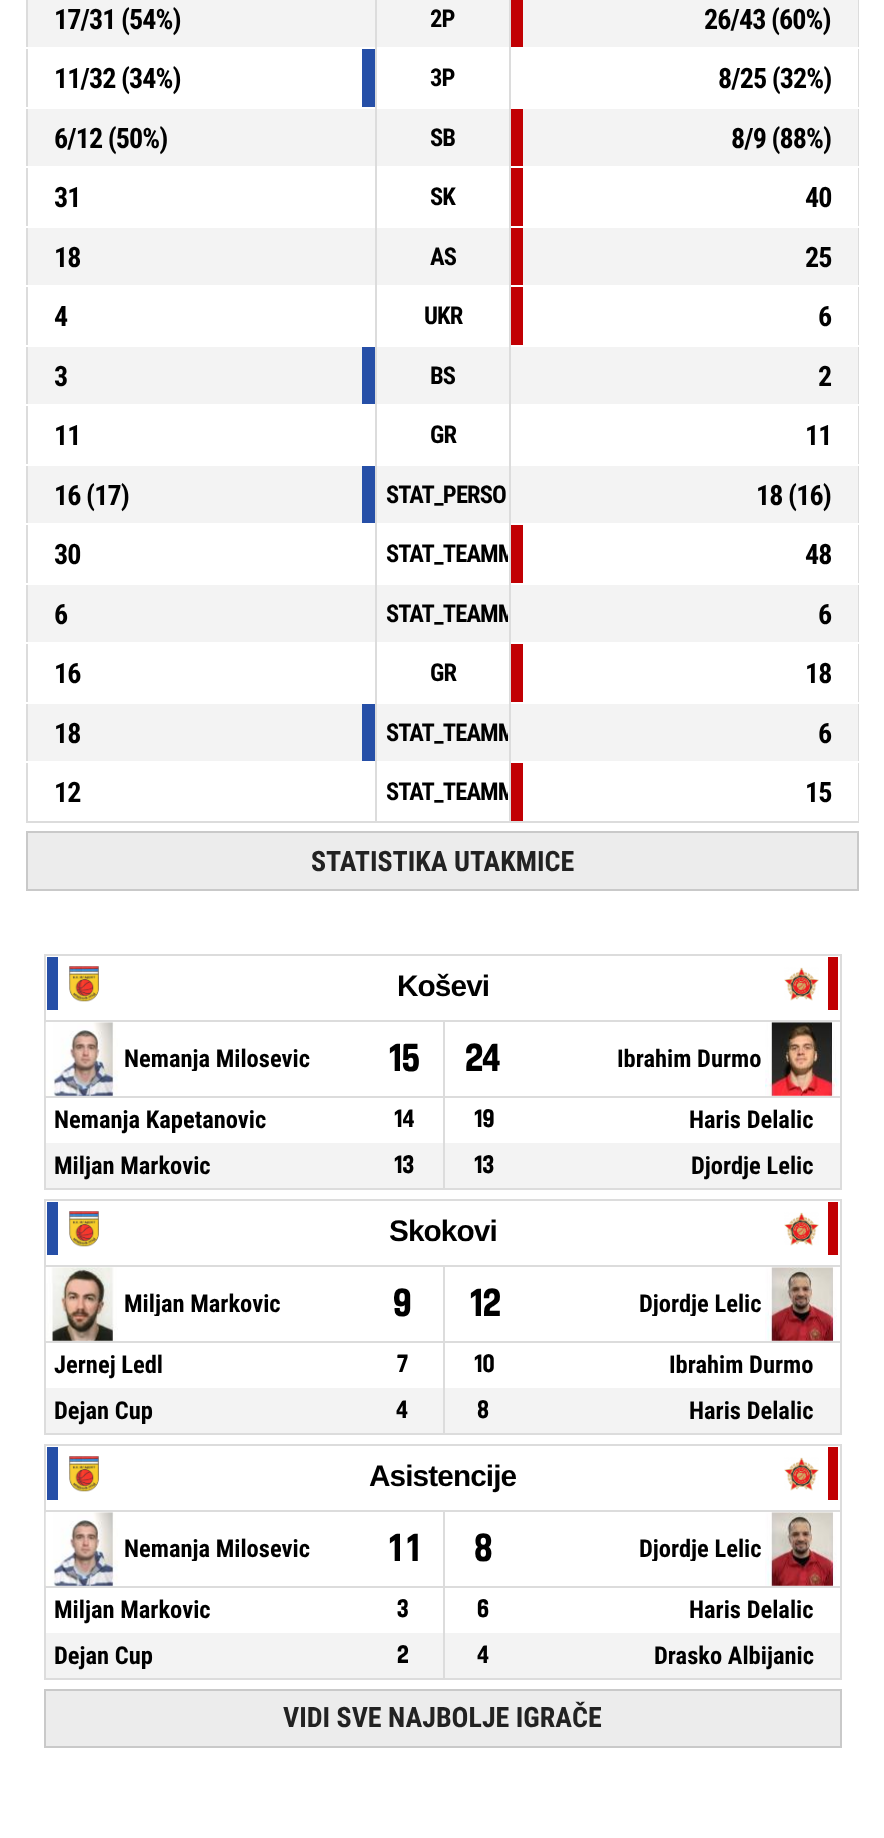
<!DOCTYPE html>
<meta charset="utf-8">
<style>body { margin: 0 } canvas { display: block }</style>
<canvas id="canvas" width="884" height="1838"></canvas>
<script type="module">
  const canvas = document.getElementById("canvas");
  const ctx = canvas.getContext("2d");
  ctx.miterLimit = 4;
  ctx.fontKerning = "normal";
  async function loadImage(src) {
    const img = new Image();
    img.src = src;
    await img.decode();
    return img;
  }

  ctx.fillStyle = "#ffffff";
  ctx.fillRect(0, 0, 884, 1838);
  ctx.fillStyle = "#dcdcdc";
  ctx.fillRect(858, 0, 1, 823);
  ctx.fillRect(26, 821, 833, 2);
  ctx.fillRect(26, 0, 2, 823);
  ctx.fillStyle = "#f3f3f3";
  ctx.fillRect(28, 0, 830, 47);
  ctx.fillStyle = "#ffffff";
  ctx.fillRect(26, 47, 833, 2);
  ctx.letterSpacing = "-0.9px";
  ctx.font = "bold 28px Roboto Condensed";
  ctx.fillStyle = "#000000";
  ctx.fillText("17/31 (54%)", 54, 29);
  ctx.font = "bold 24.5px Roboto Condensed";
  ctx.fillText("2P", 430, 27);
  ctx.fillStyle = "#c10003";
  ctx.fillRect(511, 0, 12, 47);
  ctx.font = "bold 28px Roboto Condensed";
  ctx.fillStyle = "#000000";
  ctx.fillText("26/43 (60%)", 704, 29);
  ctx.fillStyle = "#ffffff";
  ctx.fillRect(26, 107, 833, 2);
  ctx.fillStyle = "#000000";
  ctx.fillText("11/32 (34%)", 54, 88);
  ctx.fillStyle = "#264fa7";
  ctx.fillRect(362, 49, 13, 58);
  ctx.font = "bold 24.5px Roboto Condensed";
  ctx.fillStyle = "#000000";
  ctx.fillText("3P", 430, 86);
  ctx.font = "bold 28px Roboto Condensed";
  ctx.fillText("8/25 (32%)", 718, 88);
  ctx.fillStyle = "#f3f3f3";
  ctx.fillRect(28, 109, 830, 57);
  ctx.fillStyle = "#ffffff";
  ctx.fillRect(26, 166, 833, 2);
  ctx.fillStyle = "#000000";
  ctx.fillText("6/12 (50%)", 54, 148);
  ctx.font = "bold 24.5px Roboto Condensed";
  ctx.fillText("SB", 430, 146);
  ctx.fillStyle = "#c10003";
  ctx.fillRect(511, 109, 12, 57);
  ctx.font = "bold 28px Roboto Condensed";
  ctx.fillStyle = "#000000";
  ctx.fillText("8/9 (88%)", 731, 148);
  ctx.fillStyle = "#ffffff";
  ctx.fillRect(26, 226, 833, 2);
  ctx.fillStyle = "#000000";
  ctx.fillText("31", 54, 207);
  ctx.font = "bold 24.5px Roboto Condensed";
  ctx.fillText("SK", 430, 205);
  ctx.fillStyle = "#c10003";
  ctx.fillRect(511, 168, 12, 58);
  ctx.font = "bold 28px Roboto Condensed";
  ctx.fillStyle = "#000000";
  ctx.fillText("40", 805, 207);
  ctx.fillStyle = "#f3f3f3";
  ctx.fillRect(28, 228, 830, 57);
  ctx.fillStyle = "#ffffff";
  ctx.fillRect(26, 285, 833, 2);
  ctx.fillStyle = "#000000";
  ctx.fillText("18", 54, 267);
  ctx.font = "bold 24.5px Roboto Condensed";
  ctx.fillText("AS", 430, 265);
  ctx.fillStyle = "#c10003";
  ctx.fillRect(511, 228, 12, 57);
  ctx.font = "bold 28px Roboto Condensed";
  ctx.fillStyle = "#000000";
  ctx.fillText("25", 805, 267);
  ctx.fillStyle = "#ffffff";
  ctx.fillRect(26, 345, 833, 2);
  ctx.fillStyle = "#000000";
  ctx.fillText("4", 54, 326);
  ctx.font = "bold 24.5px Roboto Condensed";
  ctx.fillText("UKR", 424, 324);
  ctx.fillStyle = "#c10003";
  ctx.fillRect(511, 287, 12, 58);
  ctx.font = "bold 28px Roboto Condensed";
  ctx.fillStyle = "#000000";
  ctx.fillText("6", 818, 326);
  ctx.fillStyle = "#f3f3f3";
  ctx.fillRect(28, 347, 830, 57);
  ctx.fillStyle = "#ffffff";
  ctx.fillRect(26, 404, 833, 2);
  ctx.fillStyle = "#000000";
  ctx.fillText("3", 54, 386);
  ctx.fillStyle = "#264fa7";
  ctx.fillRect(362, 347, 13, 57);
  ctx.font = "bold 24.5px Roboto Condensed";
  ctx.fillStyle = "#000000";
  ctx.fillText("BS", 430, 384);
  ctx.font = "bold 28px Roboto Condensed";
  ctx.fillText("2", 818, 386);
  ctx.fillStyle = "#ffffff";
  ctx.fillRect(26, 464, 833, 2);
  ctx.fillStyle = "#000000";
  ctx.fillText("11", 54, 445);
  ctx.font = "bold 24.5px Roboto Condensed";
  ctx.fillText("GR", 430, 443);
  ctx.font = "bold 28px Roboto Condensed";
  ctx.fillText("11", 805, 445);
  ctx.fillStyle = "#f3f3f3";
  ctx.fillRect(28, 466, 830, 57);
  ctx.fillStyle = "#ffffff";
  ctx.fillRect(26, 523, 833, 2);
  ctx.fillStyle = "#000000";
  ctx.fillText("16 (17)", 54, 505);
  ctx.fillStyle = "#264fa7";
  ctx.fillRect(362, 466, 13, 57);
  ctx.font = "bold 24.5px Roboto Condensed";
  ctx.fillStyle = "#000000";
  ctx.fillText("STAT_PERSO", 386, 503);
  ctx.font = "bold 28px Roboto Condensed";
  ctx.fillText("18 (16)", 756, 505);
  ctx.fillStyle = "#ffffff";
  ctx.fillRect(26, 583, 833, 2);
  ctx.fillStyle = "#000000";
  ctx.fillText("30", 54, 564);
  ctx.save();
  ctx.beginPath();
  ctx.rect(378, 525, 130, 60);
  ctx.clip();
  ctx.font = "bold 24.5px Roboto Condensed";
  ctx.fillText("STAT_TEAMM", 386, 562);
  ctx.restore();
  ctx.fillStyle = "#c10003";
  ctx.fillRect(511, 525, 12, 58);
  ctx.fillStyle = "#000000";
  ctx.fillText("48", 805, 564);
  ctx.fillStyle = "#f3f3f3";
  ctx.fillRect(28, 585, 830, 57);
  ctx.fillStyle = "#ffffff";
  ctx.fillRect(26, 642, 833, 2);
  ctx.fillStyle = "#000000";
  ctx.fillText("6", 54, 624);
  ctx.save();
  ctx.beginPath();
  ctx.rect(378, 585, 130, 59);
  ctx.clip();
  ctx.font = "bold 24.5px Roboto Condensed";
  ctx.fillText("STAT_TEAMM", 386, 622);
  ctx.restore();
  ctx.fillText("6", 818, 624);
  ctx.fillStyle = "#ffffff";
  ctx.fillRect(26, 702, 833, 2);
  ctx.fillStyle = "#000000";
  ctx.fillText("16", 54, 683);
  ctx.font = "bold 24.5px Roboto Condensed";
  ctx.fillText("GR", 430, 681);
  ctx.fillStyle = "#c10003";
  ctx.fillRect(511, 644, 12, 58);
  ctx.font = "bold 28px Roboto Condensed";
  ctx.fillStyle = "#000000";
  ctx.fillText("18", 805, 683);
  ctx.fillStyle = "#f3f3f3";
  ctx.fillRect(28, 704, 830, 57);
  ctx.fillStyle = "#ffffff";
  ctx.fillRect(26, 761, 833, 2);
  ctx.fillStyle = "#000000";
  ctx.fillText("18", 54, 743);
  ctx.fillStyle = "#264fa7";
  ctx.fillRect(362, 704, 13, 57);
  ctx.save();
  ctx.beginPath();
  ctx.rect(378, 704, 130, 59);
  ctx.clip();
  ctx.font = "bold 24.5px Roboto Condensed";
  ctx.fillStyle = "#000000";
  ctx.fillText("STAT_TEAMM", 386, 741);
  ctx.restore();
  ctx.fillStyle = "#000000";
  ctx.fillText("6", 818, 743);
  ctx.fillText("12", 54, 802);
  ctx.fillStyle = "#dcdcdc";
  ctx.fillRect(509, 0, 2, 823);
  ctx.fillRect(375, 0, 2, 823);
  ctx.save();
  ctx.beginPath();
  ctx.rect(378, 763, 130, 60);
  ctx.clip();
  ctx.font = "bold 24.5px Roboto Condensed";
  ctx.fillStyle = "#000000";
  ctx.fillText("STAT_TEAMM", 386, 800);
  ctx.restore();
  ctx.fillStyle = "#c10003";
  ctx.fillRect(511, 763, 12, 58);
  ctx.fillStyle = "#000000";
  ctx.fillText("15", 805, 802);
  ctx.fillStyle = "#ececec";
  ctx.beginPath();
  ctx.rect(27, 832, 831, 58);
  ctx.fill();
  ctx.strokeStyle = "#c9c9c9";
  ctx.lineWidth = 2;
  ctx.stroke();
  ctx.letterSpacing = "0px";
  ctx.fillStyle = "#222222";
  ctx.fillText("STATISTIKA UTAKMICE", 311, 871);
  ctx.fillStyle = "#dcdcdc";
  ctx.fillRect(44, 954, 798, 2);
  ctx.fillRect(840, 954, 2, 236);
  ctx.fillRect(44, 1188, 798, 2);
  ctx.fillRect(44, 954, 2, 236);
  ctx.fillStyle = "#264fa7";
  ctx.fillRect(47, 957, 11, 53);
  ctx.drawImage(await loadImage("img1.png"), 69, 966, 30, 36);
  ctx.letterSpacing = "-0.9px";
  ctx.font = "bold 29.75px Liberation Sans";
  ctx.fillStyle = "#000000";
  ctx.fillText("Koševi", 397, 996);
  ctx.drawImage(await loadImage("img2.png"), 784, 967, 35, 34);
  ctx.fillStyle = "#c10003";
  ctx.fillRect(828, 957, 10, 53);
  ctx.fillStyle = "#dcdcdc";
  ctx.fillRect(44, 1020, 798, 2);
  ctx.fillRect(44, 1096, 798, 2);
  ctx.drawImage(await loadImage("img3.png"), 45, 1022, 75, 74);
  ctx.save();
  ctx.beginPath();
  ctx.rect(54, 1047, 301, 24);
  ctx.clip();
  ctx.letterSpacing = "0px";
  ctx.font = "bold 24.5px Roboto Condensed";
  ctx.fillStyle = "#000000";
  ctx.fillText("Nemanja Milosevic", 124, 1067);
  ctx.restore();
  ctx.letterSpacing = "0px";
  ctx.font = "38px 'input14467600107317'";
  ctx.fillStyle = "#000000";
  ctx.fillText("15", 384, 1071);
  ctx.fillText("24", 465, 1071);
  ctx.font = "bold 24.5px Roboto Condensed";
  ctx.fillText("Ibrahim Durmo", 617, 1067);
  ctx.drawImage(await loadImage("img4.png"), 765, 1022, 74, 74);
  ctx.fillText("Nemanja Kapetanovic", 54, 1128);
  ctx.font = "24.5px 'input14467600107317'";
  ctx.fillText("14", 391, 1127);
  ctx.fillText("19", 471, 1127);
  ctx.font = "bold 24.5px Roboto Condensed";
  ctx.fillText("Haris Delalic", 689, 1128);
  ctx.fillStyle = "#f3f3f3";
  ctx.fillRect(46, 1143, 794, 45);
  ctx.fillStyle = "#000000";
  ctx.fillText("Miljan Markovic", 54, 1174);
  ctx.fillStyle = "#dcdcdc";
  ctx.fillRect(443, 1020, 2, 170);
  ctx.font = "24.5px 'input14467600107317'";
  ctx.fillStyle = "#000000";
  ctx.fillText("13", 391, 1173);
  ctx.fillText("13", 471, 1173);
  ctx.font = "bold 24.5px Roboto Condensed";
  ctx.fillText("Djordje Lelic", 691, 1174);
  ctx.fillStyle = "#dcdcdc";
  ctx.fillRect(44, 1199, 798, 2);
  ctx.fillRect(840, 1199, 2, 236);
  ctx.fillRect(44, 1433, 798, 2);
  ctx.fillRect(44, 1199, 2, 236);
  ctx.fillStyle = "#264fa7";
  ctx.fillRect(47, 1202, 11, 53);
  ctx.drawImage(await loadImage("img1.png"), 69, 1211, 30, 36);
  ctx.letterSpacing = "-0.9px";
  ctx.font = "bold 29.75px Liberation Sans";
  ctx.fillStyle = "#000000";
  ctx.fillText("Skokovi", 389, 1241);
  ctx.drawImage(await loadImage("img2.png"), 784, 1212, 35, 34);
  ctx.fillStyle = "#c10003";
  ctx.fillRect(828, 1202, 10, 53);
  ctx.fillStyle = "#dcdcdc";
  ctx.fillRect(44, 1265, 798, 2);
  ctx.fillRect(44, 1341, 798, 2);
  ctx.drawImage(await loadImage("img5.png"), 45, 1267, 73, 74);
  ctx.save();
  ctx.beginPath();
  ctx.rect(54, 1292, 301, 24);
  ctx.clip();
  ctx.letterSpacing = "0px";
  ctx.font = "bold 24.5px Roboto Condensed";
  ctx.fillStyle = "#000000";
  ctx.fillText("Miljan Markovic", 124, 1312);
  ctx.restore();
  ctx.letterSpacing = "0px";
  ctx.font = "38px 'input14467600107317'";
  ctx.fillStyle = "#000000";
  ctx.fillText("9", 393, 1316);
  ctx.fillText("12", 465, 1316);
  ctx.save();
  ctx.beginPath();
  ctx.rect(532, 1292, 299, 24);
  ctx.clip();
  ctx.font = "bold 24.5px Roboto Condensed";
  ctx.fillText("Djordje Lelic", 639, 1312);
  ctx.restore();
  ctx.drawImage(await loadImage("img6.png"), 765, 1267, 72, 74);
  ctx.font = "bold 24.5px Roboto Condensed";
  ctx.fillText("Jernej Ledl", 54, 1373);
  ctx.font = "24.5px 'input14467600107317'";
  ctx.fillText("7", 397, 1372);
  ctx.fillText("10", 471, 1372);
  ctx.font = "bold 24.5px Roboto Condensed";
  ctx.fillText("Ibrahim Durmo", 669, 1373);
  ctx.fillStyle = "#f3f3f3";
  ctx.fillRect(46, 1388, 794, 45);
  ctx.fillStyle = "#000000";
  ctx.fillText("Dejan Cup", 54, 1419);
  ctx.fillStyle = "#dcdcdc";
  ctx.fillRect(443, 1265, 2, 170);
  ctx.font = "24.5px 'input14467600107317'";
  ctx.fillStyle = "#000000";
  ctx.fillText("4", 396, 1418);
  ctx.fillText("8", 477, 1418);
  ctx.font = "bold 24.5px Roboto Condensed";
  ctx.fillText("Haris Delalic", 689, 1419);
  ctx.fillStyle = "#dcdcdc";
  ctx.fillRect(44, 1444, 798, 2);
  ctx.fillRect(840, 1444, 2, 236);
  ctx.fillRect(44, 1678, 798, 2);
  ctx.fillRect(44, 1444, 2, 236);
  ctx.fillStyle = "#264fa7";
  ctx.fillRect(47, 1447, 11, 53);
  ctx.drawImage(await loadImage("img1.png"), 69, 1456, 30, 36);
  ctx.letterSpacing = "-0.9px";
  ctx.font = "bold 29.75px Liberation Sans";
  ctx.fillStyle = "#000000";
  ctx.fillText("Asistencije", 369, 1486);
  ctx.drawImage(await loadImage("img2.png"), 784, 1457, 35, 34);
  ctx.fillStyle = "#c10003";
  ctx.fillRect(828, 1447, 10, 53);
  ctx.fillStyle = "#dcdcdc";
  ctx.fillRect(44, 1510, 798, 2);
  ctx.fillRect(44, 1586, 798, 2);
  ctx.drawImage(await loadImage("img3.png"), 45, 1512, 75, 74);
  ctx.save();
  ctx.beginPath();
  ctx.rect(54, 1537, 301, 24);
  ctx.clip();
  ctx.letterSpacing = "0px";
  ctx.font = "bold 24.5px Roboto Condensed";
  ctx.fillStyle = "#000000";
  ctx.fillText("Nemanja Milosevic", 124, 1557);
  ctx.restore();
  ctx.letterSpacing = "0px";
  ctx.font = "38px 'input14467600107317'";
  ctx.fillStyle = "#000000";
  ctx.fillText("11", 384, 1561);
  ctx.fillText("8", 474, 1561);
  ctx.save();
  ctx.beginPath();
  ctx.rect(532, 1537, 299, 24);
  ctx.clip();
  ctx.font = "bold 24.5px Roboto Condensed";
  ctx.fillText("Djordje Lelic", 639, 1557);
  ctx.restore();
  ctx.drawImage(await loadImage("img6.png"), 765, 1512, 72, 74);
  ctx.font = "bold 24.5px Roboto Condensed";
  ctx.fillText("Miljan Markovic", 54, 1618);
  ctx.font = "24.5px 'input14467600107317'";
  ctx.fillText("3", 397, 1617);
  ctx.fillText("6", 477, 1617);
  ctx.font = "bold 24.5px Roboto Condensed";
  ctx.fillText("Haris Delalic", 689, 1618);
  ctx.fillStyle = "#f3f3f3";
  ctx.fillRect(46, 1633, 794, 45);
  ctx.fillStyle = "#000000";
  ctx.fillText("Dejan Cup", 54, 1664);
  ctx.fillStyle = "#dcdcdc";
  ctx.fillRect(443, 1510, 2, 170);
  ctx.font = "24.5px 'input14467600107317'";
  ctx.fillStyle = "#000000";
  ctx.fillText("2", 397, 1663);
  ctx.fillText("4", 477, 1663);
  ctx.font = "bold 24.5px Roboto Condensed";
  ctx.fillText("Drasko Albijanic", 654, 1664);
  ctx.fillStyle = "#ececec";
  ctx.beginPath();
  ctx.rect(45, 1690, 796, 57);
  ctx.fill();
  ctx.stroke();
  ctx.font = "bold 28px Roboto Condensed";
  ctx.fillStyle = "#222222";
  ctx.fillText("VIDI SVE NAJBOLJE IGRAČE", 283, 1727);
</script>
